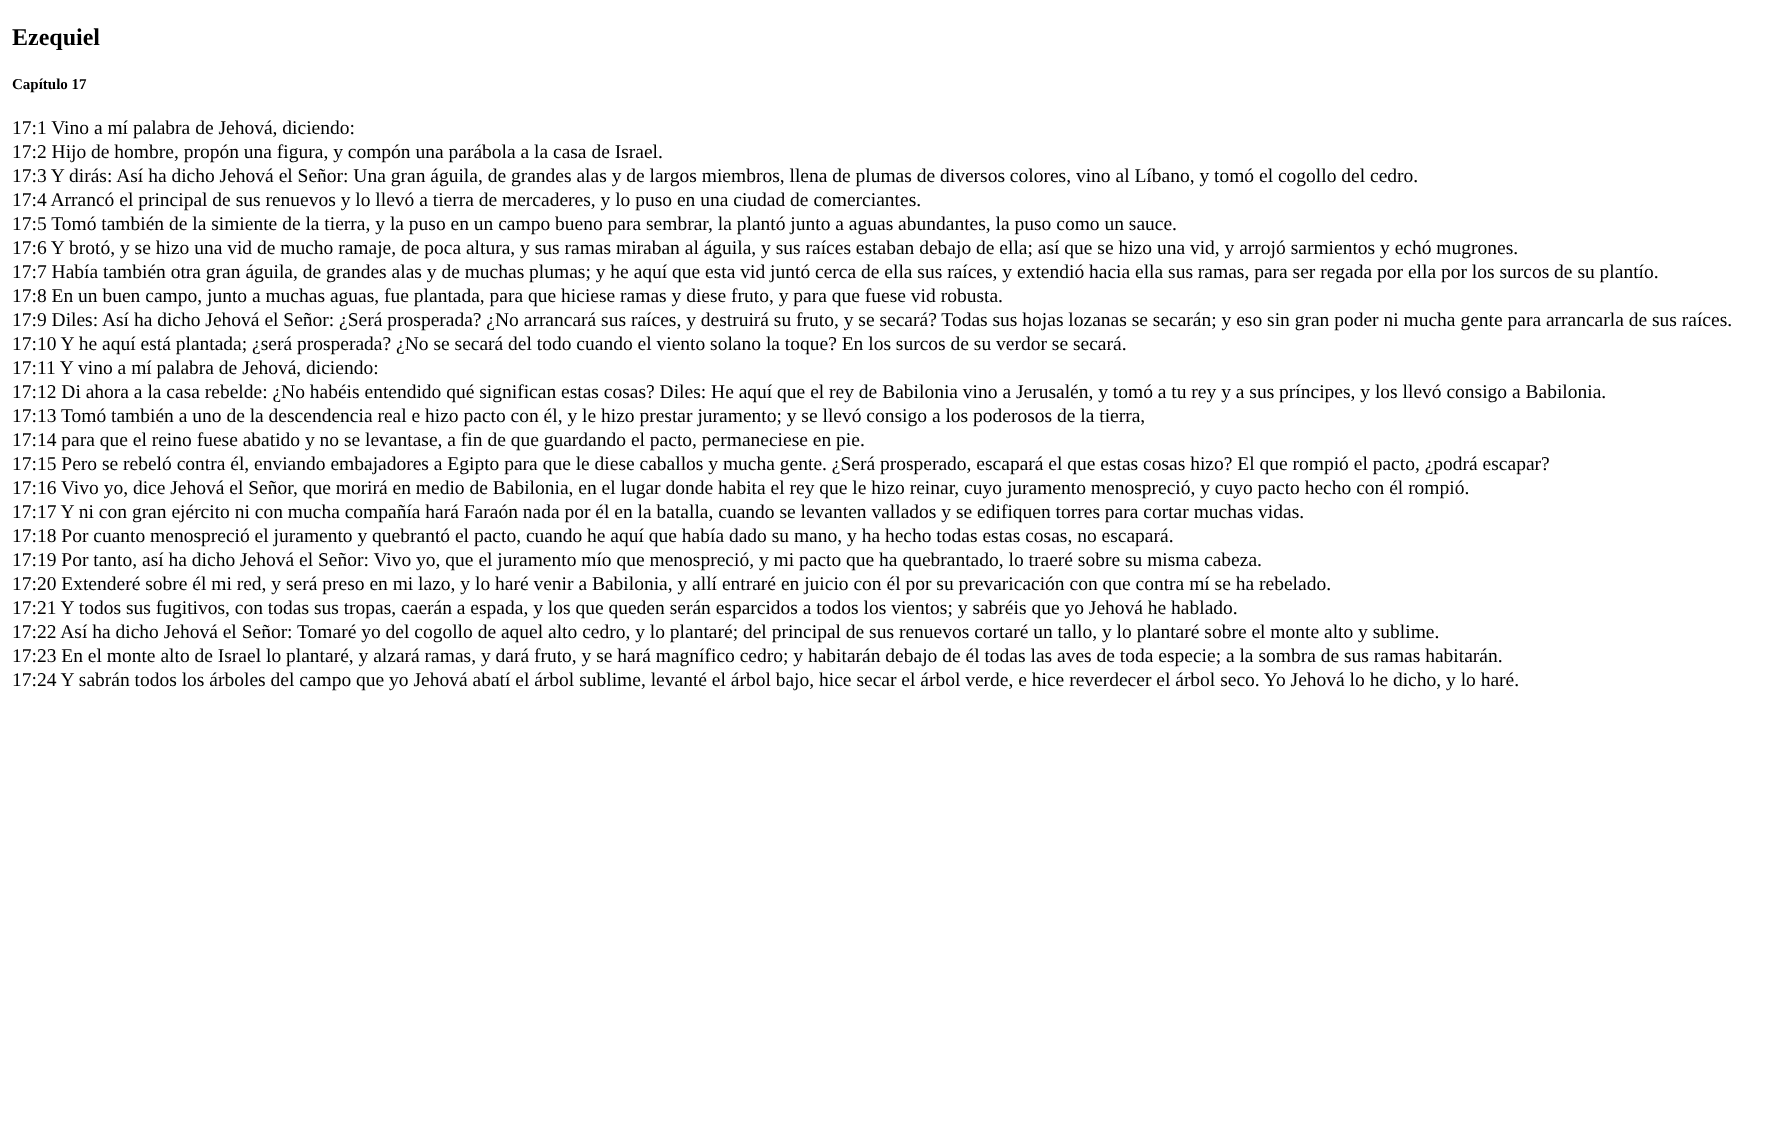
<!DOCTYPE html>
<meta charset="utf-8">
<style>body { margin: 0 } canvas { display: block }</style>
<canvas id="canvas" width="1778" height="1127"></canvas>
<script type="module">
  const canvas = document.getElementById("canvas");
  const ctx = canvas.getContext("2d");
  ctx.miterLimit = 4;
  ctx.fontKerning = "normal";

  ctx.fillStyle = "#ffffff";
  ctx.fillRect(0, 0, 1778, 1127);
  ctx.font = "bold 24px Liberation Serif";
  ctx.fillStyle = "#000000";
  ctx.fillText("Ezequiel", 12, 45);
  ctx.font = "bold 15px Liberation Serif";
  ctx.fillText("Capítulo 17", 12, 89);
  ctx.font = "19.5px Liberation Serif";
  ctx.fillText("17:1 Vino a mí palabra de Jehová, diciendo:", 12, 134);
  ctx.fillText("17:2 Hijo de hombre, propón una figura, y compón una parábola a la casa de Israel.", 12, 158);
  ctx.fillText("17:3 Y dirás: Así ha dicho Jehová el Señor: Una gran águila, de grandes alas y de largos miembros, llena de plumas de diversos colores, vino al Líbano, y tomó el cogollo del cedro.", 12, 182);
  ctx.fillText("17:4 Arrancó el principal de sus renuevos y lo llevó a tierra de mercaderes, y lo puso en una ciudad de comerciantes.", 12, 206);
  ctx.fillText("17:5 Tomó también de la simiente de la tierra, y la puso en un campo bueno para sembrar, la plantó junto a aguas abundantes, la puso como un sauce.", 12, 230);
  ctx.fillText("17:6 Y brotó, y se hizo una vid de mucho ramaje, de poca altura, y sus ramas miraban al águila, y sus raíces estaban debajo de ella; así que se hizo una vid, y arrojó sarmientos y echó mugrones.", 12, 254);
  ctx.fillText("17:7 Había también otra gran águila, de grandes alas y de muchas plumas; y he aquí que esta vid juntó cerca de ella sus raíces, y extendió hacia ella sus ramas, para ser regada por ella por los surcos de su plantío.", 12, 278);
  ctx.fillText("17:8 En un buen campo, junto a muchas aguas, fue plantada, para que hiciese ramas y diese fruto, y para que fuese vid robusta.", 12, 302);
  ctx.fillText("17:9 Diles: Así ha dicho Jehová el Señor: ¿Será prosperada? ¿No arrancará sus raíces, y destruirá su fruto, y se secará? Todas sus hojas lozanas se secarán; y eso sin gran poder ni mucha gente para arrancarla de sus raíces.", 12, 326);
  ctx.fillText("17:10 Y he aquí está plantada; ¿será prosperada? ¿No se secará del todo cuando el viento solano la toque? En los surcos de su verdor se secará.", 12, 350);
  ctx.fillText("17:11 Y vino a mí palabra de Jehová, diciendo:", 12, 374);
  ctx.fillText("17:12 Di ahora a la casa rebelde: ¿No habéis entendido qué significan estas cosas? Diles: He aquí que el rey de Babilonia vino a Jerusalén, y tomó a tu rey y a sus príncipes, y los llevó consigo a Babilonia.", 12, 398);
  ctx.fillText("17:13 Tomó también a uno de la descendencia real e hizo pacto con él, y le hizo prestar juramento; y se llevó consigo a los poderosos de la tierra,", 12, 422);
  ctx.fillText("17:14 para que el reino fuese abatido y no se levantase, a fin de que guardando el pacto, permaneciese en pie.", 12, 446);
  ctx.fillText("17:15 Pero se rebeló contra él, enviando embajadores a Egipto para que le diese caballos y mucha gente. ¿Será prosperado, escapará el que estas cosas hizo? El que rompió el pacto, ¿podrá escapar?", 12, 470);
  ctx.fillText("17:16 Vivo yo, dice Jehová el Señor, que morirá en medio de Babilonia, en el lugar donde habita el rey que le hizo reinar, cuyo juramento menospreció, y cuyo pacto hecho con él rompió.", 12, 494);
  ctx.fillText("17:17 Y ni con gran ejército ni con mucha compañía hará Faraón nada por él en la batalla, cuando se levanten vallados y se edifiquen torres para cortar muchas vidas.", 12, 518);
  ctx.fillText("17:18 Por cuanto menospreció el juramento y quebrantó el pacto, cuando he aquí que había dado su mano, y ha hecho todas estas cosas, no escapará.", 12, 542);
  ctx.fillText("17:19 Por tanto, así ha dicho Jehová el Señor: Vivo yo, que el juramento mío que menospreció, y mi pacto que ha quebrantado, lo traeré sobre su misma cabeza.", 12, 566);
  ctx.fillText("17:20 Extenderé sobre él mi red, y será preso en mi lazo, y lo haré venir a Babilonia, y allí entraré en juicio con él por su prevaricación con que contra mí se ha rebelado.", 12, 590);
  ctx.fillText("17:21 Y todos sus fugitivos, con todas sus tropas, caerán a espada, y los que queden serán esparcidos a todos los vientos; y sabréis que yo Jehová he hablado.", 12, 614);
  ctx.fillText("17:22 Así ha dicho Jehová el Señor: Tomaré yo del cogollo de aquel alto cedro, y lo plantaré; del principal de sus renuevos cortaré un tallo, y lo plantaré sobre el monte alto y sublime.", 12, 638);
  ctx.fillText("17:23 En el monte alto de Israel lo plantaré, y alzará ramas, y dará fruto, y se hará magnífico cedro; y habitarán debajo de él todas las aves de toda especie; a la sombra de sus ramas habitarán.", 12, 662);
  ctx.fillText("17:24 Y sabrán todos los árboles del campo que yo Jehová abatí el árbol sublime, levanté el árbol bajo, hice secar el árbol verde, e hice reverdecer el árbol seco. Yo Jehová lo he dicho, y lo haré.", 12, 686);
</script>
